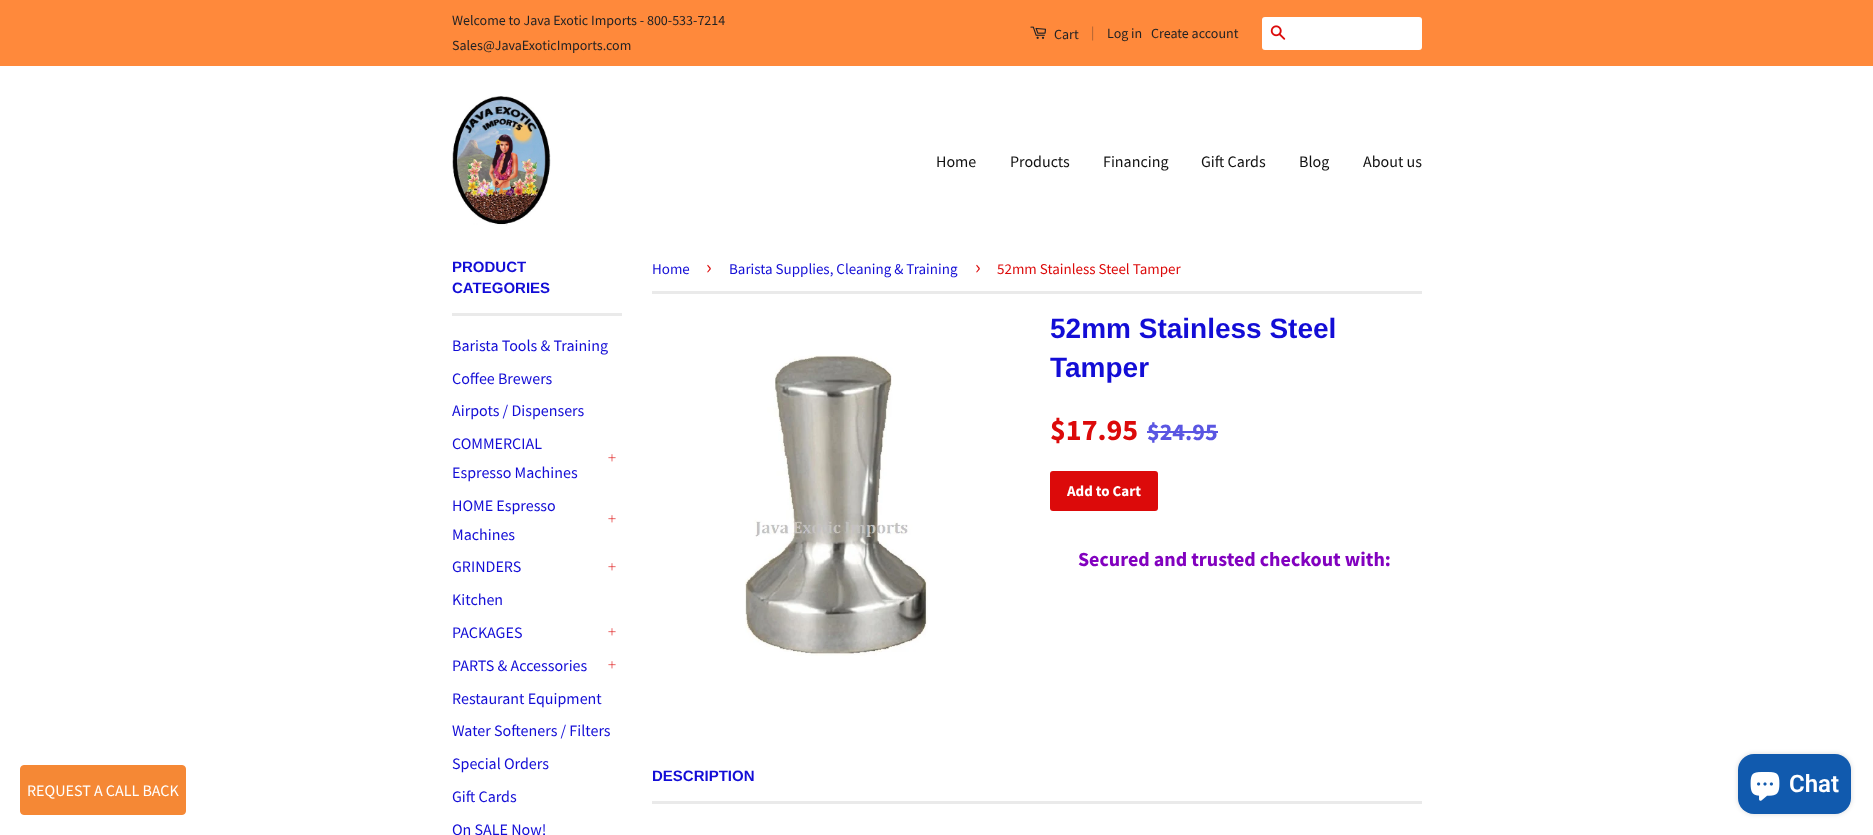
(async () => {
  const canvas = document.querySelector("canvas");
  canvas.width = 1873;
  canvas.height = 835;
  const ctx = canvas.getContext("2d");
  ctx.miterLimit = 4;
  ctx.fontKerning = "normal";
  async function loadImage(src) {
    const img = new Image();
    img.src = src;
    await img.decode();
    return img;
  }

  ctx.fillStyle = "#ffffff";
  ctx.fillRect(0, 0, 1873, 835);
  ctx.fillStyle = "#ff893b";
  ctx.fillRect(0, 0, 1873, 66);
  ctx.drawImage(await loadImage("img/1.png"), 1030, 26, 16, 13);
  ctx.fillStyle = "#ffffff";
  ctx.beginPath();
  ctx.roundRect(1262, 17, 160, 33, 3);
  ctx.fill();
  ctx.drawImage(await loadImage("img/2.png"), 1270, 25, 16, 15);
  ctx.drawImage(await loadImage("img/3.png"), 452, 96, 99, 130);
  ctx.fillStyle = "#f58835";
  ctx.beginPath();
  ctx.roundRect(20.5, 765.5, 165, 49, 3.5);
  ctx.fill();
  ctx.strokeStyle = "#f58835";
  ctx.stroke();
  ctx.fillStyle = "#eaeaea";
  ctx.fillRect(452, 313, 170, 3);
  ctx.drawImage(await loadImage("img/4.png"), 608, 454, 8, 8);
  ctx.drawImage(await loadImage("img/4.png"), 608, 515, 8, 8);
  ctx.drawImage(await loadImage("img/4.png"), 608, 563, 8, 8);
  ctx.drawImage(await loadImage("img/4.png"), 608, 628, 8, 8);
  ctx.drawImage(await loadImage("img/4.png"), 608, 661, 8, 8);
  ctx.fillRect(652, 291, 770, 3);
  ctx.drawImage(await loadImage("img/5.png"), 745, 355, 183, 301);
  ctx.fillStyle = "#5a56e2";
  ctx.fillRect(1147, 431, 71, 2);
  ctx.fillStyle = "#dc0a0a";
  ctx.beginPath();
  ctx.roundRect(1050, 471, 108, 40, 3);
  ctx.fill();
  ctx.fillStyle = "#eaeaea";
  ctx.fillRect(652, 801, 770, 3);
  ctx.fillStyle = "rgba(0, 0, 0, 0.15)";
  ctx.filter = "blur(2.5px)";
  ctx.beginPath();
  ctx.roundRect(1738, 754, 113, 60, 16);
  ctx.fill();
  ctx.filter = "none";
  ctx.fillStyle = "#115aae";
  ctx.beginPath();
  ctx.roundRect(1738, 754, 113, 60, 16);
  ctx.fill();
  ctx.drawImage(await loadImage("img/6.png"), 1750, 772, 30, 29);
  ctx.font = "14px Source Sans Pro";
  ctx.fillStyle = "#1f2124";
  for (const [text, x, y] of [
    ["Welcome to Java Exotic Imports - 800-533-7214", 452, 25],
    ["Sales@JavaExoticImports.com", 452, 50],
    ["Cart", 1054, 39],
  ]) {
    ctx.fillText(text, x, y);
  }
  ctx.fillStyle = "#a55f32";
  ctx.fillText("|", 1091, 37);
  ctx.fillStyle = "#1f2124";
  ctx.fillText("Log in", 1107, 38);
  ctx.fillText("Create account", 1151, 38);
  ctx.font = "16px Source Sans Pro";
  ctx.fillStyle = "#111111";
  for (const [text, x, y] of [
    ["Home", 936, 167],
    ["Products", 1010, 167],
    ["Financing", 1103, 167],
    ["Gift Cards", 1201, 167],
    ["Blog", 1299, 167],
    ["About us", 1363, 167],
  ]) {
    ctx.fillText(text, x, y);
  }
  ctx.fillStyle = "#ffffff";
  ctx.fillText("REQUEST A CALL BACK", 27, 796);
  ctx.font = "bold 15px Liberation Sans";
  ctx.fillStyle = "#130dd6";
  ctx.fillText("PRODUCT", 452, 272);
  ctx.fillText("CATEGORIES", 452, 293);
  ctx.font = "16px Source Sans Pro";
  for (const [text, x, y] of [
    ["Barista Tools & Training", 452, 351],
    ["Coffee Brewers", 452, 384],
    ["Airpots / Dispensers", 452, 416],
    ["COMMERCIAL", 452, 449],
    ["Espresso Machines", 452, 478],
    ["HOME Espresso", 452, 511],
    ["Machines", 452, 540],
    ["GRINDERS", 452, 572],
    ["Kitchen", 452, 605],
    ["PACKAGES", 452, 638],
    ["PARTS & Accessories", 452, 671],
    ["Restaurant Equipment", 452, 704],
    ["Water Softeners / Filters", 452, 736],
    ["Special Orders", 452, 769],
    ["Gift Cards", 452, 802],
    ["On SALE Now!", 452, 835],
  ]) {
    ctx.fillText(text, x, y);
  }
  ctx.font = "15px Source Sans Pro";
  ctx.fillText("Home", 652, 274);
  ctx.font = "21px Source Sans Pro";
  ctx.fillStyle = "#dc0a0a";
  ctx.fillText("›", 706, 274);
  ctx.font = "15px Source Sans Pro";
  ctx.fillStyle = "#130dd6";
  ctx.fillText("Barista Supplies, Cleaning & Training", 729, 274);
  ctx.font = "21px Source Sans Pro";
  ctx.fillStyle = "#dc0a0a";
  ctx.fillText("›", 975, 274);
  ctx.font = "15px Source Sans Pro";
  ctx.fillText("52mm Stainless Steel Tamper", 997, 274);
  ctx.font = "bold 28px Liberation Sans";
  ctx.fillStyle = "#130dd6";
  ctx.fillText("52mm Stainless Steel", 1050, 338);
  ctx.fillText("Tamper", 1050, 377);
  ctx.font = "bold 30px Source Sans Pro";
  ctx.fillStyle = "#dc0a0a";
  ctx.fillText("$17.95", 1050, 440);
  ctx.font = "bold 24px Source Sans Pro";
  ctx.fillStyle = "#5a56e2";
  ctx.fillText("$24.95", 1147, 440);
  ctx.font = "bold 15px Source Sans Pro";
  ctx.fillStyle = "#ffffff";
  ctx.fillText("Add to Cart", 1067, 496);
  ctx.font = "bold 20px Source Sans Pro";
  ctx.fillStyle = "#8201bf";
  ctx.fillText("Secured and trusted checkout with:", 1078, 566);
  ctx.font = "bold 15px Liberation Sans";
  ctx.fillStyle = "#130dd6";
  ctx.fillText("DESCRIPTION", 652, 781);
  ctx.font = "600 24px Roboto";
  ctx.fillStyle = "#ffffff";
  ctx.fillText("Chat", 1789, 792);
})();
